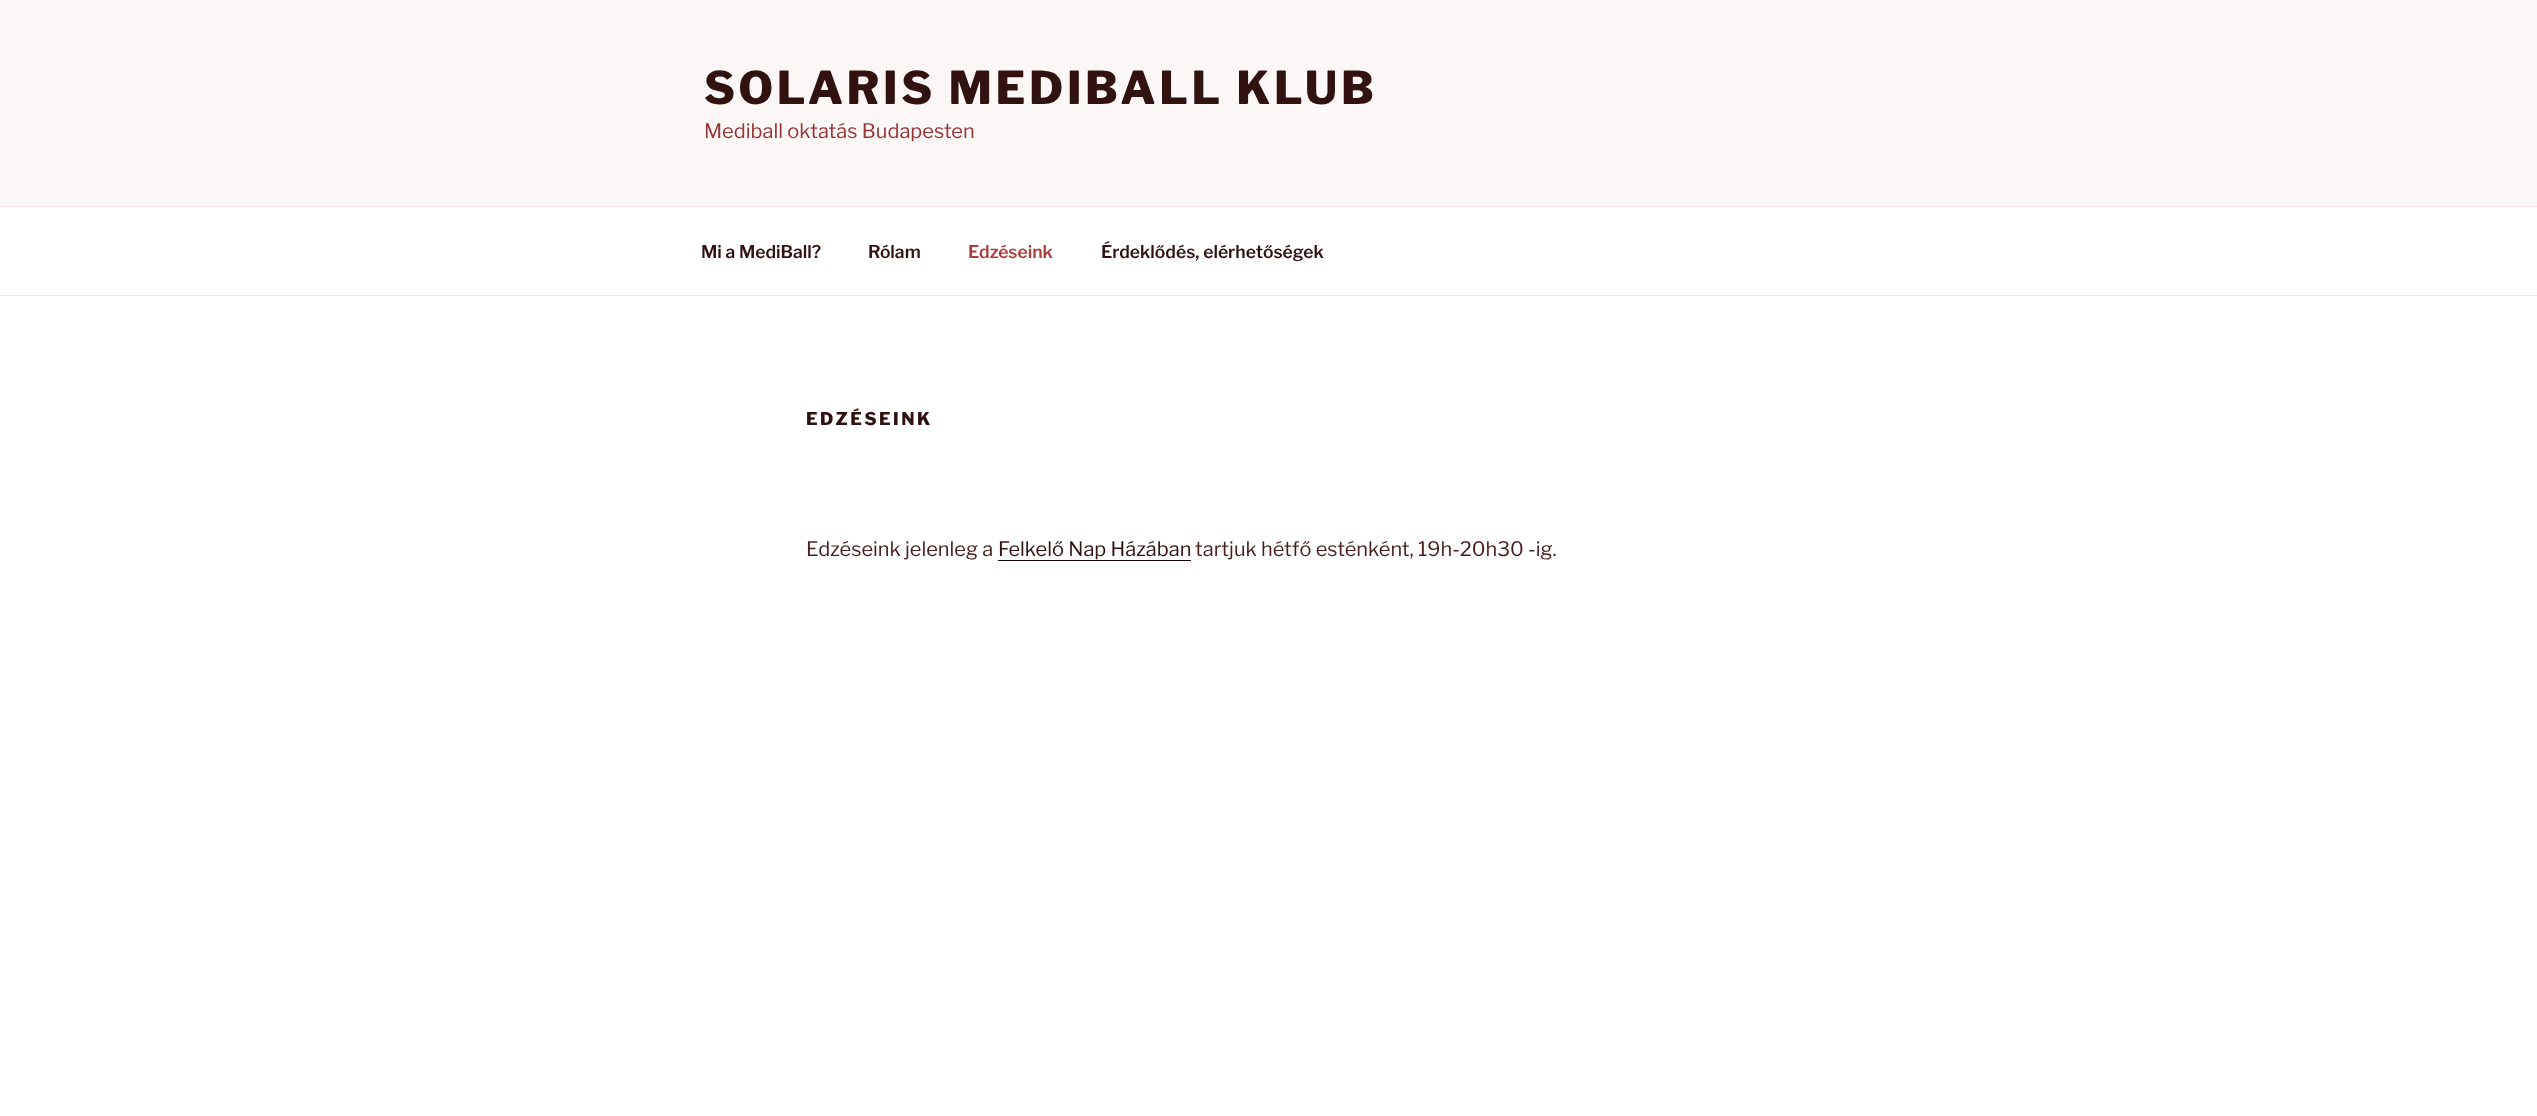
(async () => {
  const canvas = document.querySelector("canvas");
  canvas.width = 2537;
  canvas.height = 1116;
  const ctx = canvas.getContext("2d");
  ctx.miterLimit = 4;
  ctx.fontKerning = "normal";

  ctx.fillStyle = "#ffffff";
  ctx.fillRect(0, 0, 2537, 1116);
  for (const [x, y, w, h, color] of [
    [0, 0, 2537, 206, "#fcf7f7"],
    [0, 206, 2537, 1, "#f6e4e4"],
    [0, 295, 2537, 1, "#f6e4e4"],
    [998, 560, 193, 1, "#170808"],
  ]) {
    ctx.fillStyle = color;
    ctx.fillRect(x, y, w, h);
  }
  ctx.letterSpacing = "3.6px";
  ctx.font = "100 45px Libre Franklin";
  ctx.fillStyle = "#321111";
  ctx.fillText("SOLARIS MEDIBALL KLUB", 704, 104);
  ctx.letterSpacing = "0px";
  ctx.font = "100 20px 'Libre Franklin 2'";
  ctx.fillStyle = "#993333";
  ctx.fillText("Mediball oktatás Budapesten", 704, 138);
  ctx.font = "100 17.5px 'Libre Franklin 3'";
  ctx.fillStyle = "#321111";
  ctx.fillText("Mi a MediBall?", 701, 258);
  ctx.fillText("Rólam", 868, 258);
  ctx.fillStyle = "#b03b3b";
  ctx.fillText("Edzéseink", 968, 258);
  ctx.fillStyle = "#321111";
  ctx.fillText("Érdeklődés, elérhetőségek", 1101, 258);
  ctx.letterSpacing = "2.5px";
  ctx.font = "100 17.5px Libre Franklin";
  ctx.fillText("EDZÉSEINK", 806, 425);
  ctx.letterSpacing = "0px";
  ctx.font = "100 20px 'Libre Franklin 2'";
  ctx.fillStyle = "#471f1f";
  ctx.fillText("Edzéseink jelenleg a", 806, 556);
  ctx.fillStyle = "#321111";
  ctx.fillText("Felkelő Nap Házában", 998, 556);
  ctx.fillStyle = "#471f1f";
  ctx.fillText("tartjuk hétfő esténként, 19h-20h30 -ig.", 1195, 556);
})();
